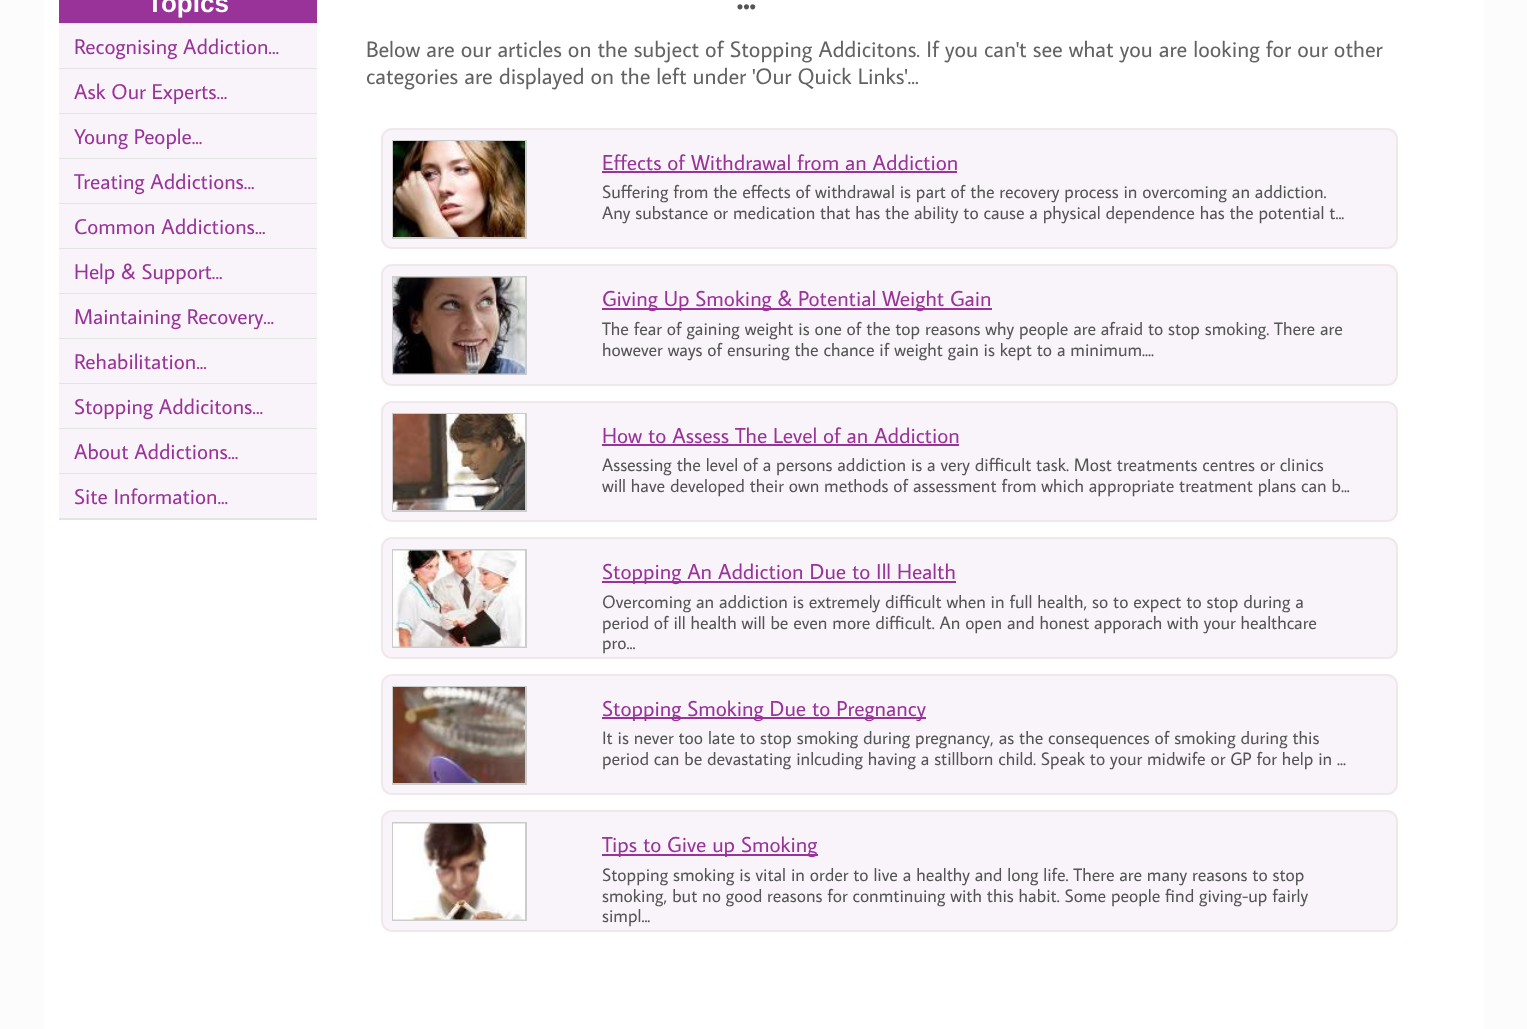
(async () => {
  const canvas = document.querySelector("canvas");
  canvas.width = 1527;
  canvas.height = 1029;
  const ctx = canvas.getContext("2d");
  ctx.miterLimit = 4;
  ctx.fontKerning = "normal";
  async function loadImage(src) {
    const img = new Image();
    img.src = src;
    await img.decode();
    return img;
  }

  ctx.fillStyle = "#fcfcfc";
  ctx.fillRect(0, 0, 1527, 1029);
  for (const [x, y, w, h, color] of [
    [44, 0, 1440, 1029, "#ffffff"],
    [59, 0, 258, 23, "#993399"],
    [59, 23, 258, 1, "#e3e3e3"],
    [59, 24, 258, 44, "#f9f3fa"],
    [59, 68, 258, 1, "#e3e3e3"],
    [59, 69, 258, 44, "#f9f3fa"],
    [59, 113, 258, 1, "#e3e3e3"],
    [59, 114, 258, 44, "#f9f3fa"],
    [59, 158, 258, 1, "#e3e3e3"],
    [59, 159, 258, 44, "#f9f3fa"],
    [59, 203, 258, 1, "#e3e3e3"],
    [59, 204, 258, 44, "#f9f3fa"],
    [59, 248, 258, 1, "#e3e3e3"],
    [59, 249, 258, 44, "#f9f3fa"],
    [59, 293, 258, 1, "#e3e3e3"],
    [59, 294, 258, 44, "#f9f3fa"],
    [59, 338, 258, 1, "#e3e3e3"],
    [59, 339, 258, 44, "#f9f3fa"],
    [59, 383, 258, 1, "#e3e3e3"],
    [59, 384, 258, 44, "#f9f3fa"],
    [59, 428, 258, 1, "#e3e3e3"],
    [59, 429, 258, 44, "#f9f3fa"],
    [59, 473, 258, 1, "#e3e3e3"],
    [59, 474, 258, 44, "#f9f3fa"],
    [59, 518, 258, 2, "#e3e3e3"],
  ]) {
    ctx.fillStyle = color;
    ctx.fillRect(x, y, w, h);
  }
  ctx.fillStyle = "#f9f3fa";
  ctx.beginPath();
  ctx.roundRect(382, 129, 1015, 119, 10);
  ctx.fill();
  ctx.strokeStyle = "#f1e8eb";
  ctx.lineWidth = 2;
  ctx.stroke();
  ctx.strokeStyle = "#cccccc";
  ctx.strokeRect(393, 141, 133, 97);
  ctx.drawImage(await loadImage("img/1.png"), 393, 141, 132, 96);
  ctx.fillStyle = "#993399";
  ctx.fillRect(602, 171, 355, 2);
  ctx.fillStyle = "#f9f3fa";
  ctx.beginPath();
  ctx.roundRect(382, 265, 1015, 120, 10);
  ctx.fill();
  ctx.strokeStyle = "#f1e8eb";
  ctx.stroke();
  ctx.strokeStyle = "#cccccc";
  ctx.strokeRect(393, 277, 133, 97);
  ctx.drawImage(await loadImage("img/2.png"), 393, 277, 132, 97);
  ctx.fillStyle = "#993399";
  ctx.fillRect(602, 308, 390, 2);
  ctx.fillStyle = "#f9f3fa";
  ctx.beginPath();
  ctx.roundRect(382, 402, 1015, 119, 10);
  ctx.fill();
  ctx.strokeStyle = "#f1e8eb";
  ctx.stroke();
  ctx.strokeStyle = "#cccccc";
  ctx.strokeRect(393, 414, 133, 97);
  ctx.drawImage(await loadImage("img/3.png"), 393, 414, 132, 96);
  ctx.fillStyle = "#993399";
  ctx.fillRect(602, 444, 357, 2);
  ctx.fillStyle = "#f9f3fa";
  ctx.beginPath();
  ctx.roundRect(382, 538, 1015, 120, 10);
  ctx.fill();
  ctx.strokeStyle = "#f1e8eb";
  ctx.stroke();
  ctx.strokeStyle = "#cccccc";
  ctx.strokeRect(393, 550, 133, 97);
  ctx.drawImage(await loadImage("img/4.png"), 393, 550, 132, 97);
  ctx.fillStyle = "#993399";
  ctx.fillRect(602, 581, 354, 2);
  ctx.fillStyle = "#f9f3fa";
  ctx.beginPath();
  ctx.roundRect(382, 675, 1015, 119, 10);
  ctx.fill();
  ctx.strokeStyle = "#f1e8eb";
  ctx.stroke();
  ctx.strokeStyle = "#cccccc";
  ctx.strokeRect(393, 687, 133, 97);
  ctx.drawImage(await loadImage("img/5.png"), 393, 687, 132, 96);
  ctx.fillStyle = "#993399";
  ctx.fillRect(602, 717, 324, 2);
  ctx.fillStyle = "#f9f3fa";
  ctx.beginPath();
  ctx.roundRect(382, 811, 1015, 120, 10);
  ctx.fill();
  ctx.strokeStyle = "#f1e8eb";
  ctx.stroke();
  ctx.strokeStyle = "#cccccc";
  ctx.strokeRect(393, 823, 133, 97);
  ctx.drawImage(await loadImage("img/6.png"), 393, 823, 132, 97);
  ctx.fillStyle = "#993399";
  ctx.fillRect(602, 854, 216, 2);
  ctx.font = "bold 26px Liberation Sans";
  ctx.fillStyle = "#ffffff";
  ctx.fillText("Topics", 147, 12);
  ctx.font = "21.5px Average Sans";
  ctx.fillStyle = "#993399";
  for (const [text, x, y] of [
    ["Recognising Addiction...", 74, 54],
    ["Ask Our Experts...", 74, 99],
    ["Young People...", 74, 144],
    ["Treating Addictions...", 74, 189],
    ["Common Addictions...", 74, 234],
    ["Help & Support...", 74, 279],
    ["Maintaining Recovery...", 74, 324],
    ["Rehabilitation...", 74, 369],
    ["Stopping Addicitons...", 74, 414],
    ["About Addictions...", 74, 459],
    ["Site Information...", 74, 504],
  ]) {
    ctx.fillText(text, x, y);
  }
  ctx.letterSpacing = "-1.5px";
  ctx.font = "48px Average Sans";
  ctx.fillStyle = "#555555";
  ctx.fillText("...", 736, 9);
  ctx.letterSpacing = "0px";
  ctx.font = "22.5px Average Sans";
  ctx.fillStyle = "#636363";
  ctx.fillText("Below are our articles on the subject of Stopping Addicitons. If you can't see what you are looking for our other", 366, 57);
  ctx.fillText("categories are displayed on the left under 'Our Quick Links'...", 366, 84);
  ctx.font = "21.6px Average Sans";
  ctx.fillStyle = "#993399";
  ctx.fillText("Effects of Withdrawal from an Addiction", 602, 170);
  ctx.font = "18px Average Sans";
  ctx.fillStyle = "#555555";
  ctx.fillText("Suffering from the effects of withdrawal is part of the recovery process in overcoming an addiction.", 602, 198);
  ctx.fillText("Any substance or medication that has the ability to cause a physical dependence has the potential t...", 602, 219);
  ctx.font = "21.6px Average Sans";
  ctx.fillStyle = "#993399";
  ctx.fillText("Giving Up Smoking & Potential Weight Gain", 602, 306);
  ctx.font = "18px Average Sans";
  ctx.fillStyle = "#555555";
  ctx.fillText("The fear of gaining weight is one of the top reasons why people are afraid to stop smoking. There are", 602, 335);
  ctx.fillText("however ways of ensuring the chance if weight gain is kept to a minimum....", 602, 356);
  ctx.font = "21.6px Average Sans";
  ctx.fillStyle = "#993399";
  ctx.fillText("How to Assess The Level of an Addiction", 602, 443);
  ctx.font = "18px Average Sans";
  ctx.fillStyle = "#555555";
  ctx.fillText("Assessing the level of a persons addiction is a very difficult task. Most treatments centres or clinics", 602, 471);
  ctx.fillText("will have developed their own methods of assessment from which appropriate treatment plans can b...", 602, 492);
  ctx.font = "21.6px Average Sans";
  ctx.fillStyle = "#993399";
  ctx.fillText("Stopping An Addiction Due to Ill Health", 602, 579);
  ctx.font = "18px Average Sans";
  ctx.fillStyle = "#555555";
  for (const [text, x, y] of [
    ["Overcoming an addiction is extremely difficult when in full health, so to expect to stop during a", 602, 608],
    ["period of ill health will be even more difficult. An open and honest apporach with your healthcare", 602, 629],
    ["pro...", 602, 649],
  ]) {
    ctx.fillText(text, x, y);
  }
  ctx.font = "21.6px Average Sans";
  ctx.fillStyle = "#993399";
  ctx.fillText("Stopping Smoking Due to Pregnancy", 602, 716);
  ctx.font = "18px Average Sans";
  ctx.fillStyle = "#555555";
  ctx.fillText("It is never too late to stop smoking during pregnancy, as the consequences of smoking during this", 602, 744);
  ctx.fillText("period can be devastating inlcuding having a stillborn child. Speak to your midwife or GP for help in ...", 602, 765);
  ctx.font = "21.6px Average Sans";
  ctx.fillStyle = "#993399";
  ctx.fillText("Tips to Give up Smoking", 602, 852);
  ctx.font = "18px Average Sans";
  ctx.fillStyle = "#555555";
  for (const [text, x, y] of [
    ["Stopping smoking is vital in order to live a healthy and long life. There are many reasons to stop", 602, 881],
    ["smoking, but no good reasons for conmtinuing with this habit. Some people find giving-up fairly", 602, 902],
    ["simpl...", 602, 922],
  ]) {
    ctx.fillText(text, x, y);
  }
})();
